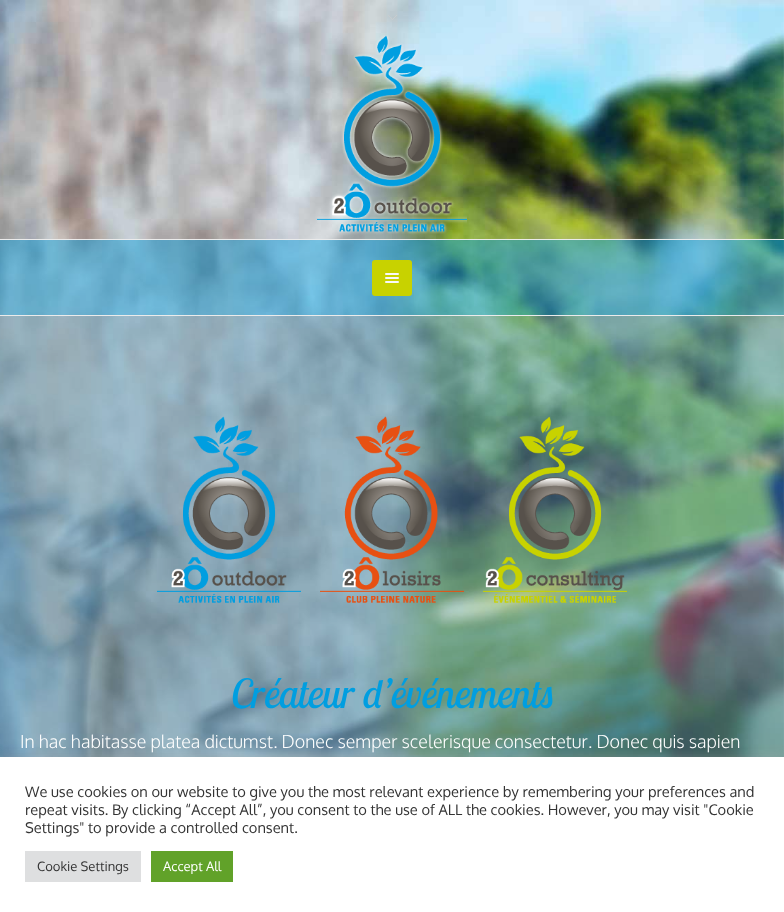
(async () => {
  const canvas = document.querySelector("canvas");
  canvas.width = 784;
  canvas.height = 912;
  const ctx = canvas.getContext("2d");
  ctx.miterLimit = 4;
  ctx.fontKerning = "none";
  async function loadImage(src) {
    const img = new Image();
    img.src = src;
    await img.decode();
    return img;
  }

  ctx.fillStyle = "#ffffff";
  ctx.fillRect(0, 0, 784, 912);
  ctx.drawImage(await loadImage("img/1.png"), 0, 0, 784, 757);
  for (const [x, y, w, h, color] of [
    [392, 19, 1, 1, "#c8ccce"],
    [396, 15, 1, 1, "#c8ccce"],
    [388, 15, 1, 1, "#c8ccce"],
    [395, 16, 1, 1, "#c8ccce"],
    [389, 16, 1, 1, "#c8ccce"],
    [394, 17, 1, 1, "#c8ccce"],
    [390, 17, 1, 1, "#c8ccce"],
    [393, 18, 1, 1, "#c8ccce"],
    [391, 18, 1, 1, "#c8ccce"],
    [0, 239, 784, 1, "#ebebeb"],
  ]) {
    ctx.fillStyle = color;
    ctx.fillRect(x, y, w, h);
  }
  ctx.drawImage(await loadImage("img/2.png"), 317, 35, 150, 200);
  ctx.fillStyle = "rgba(0, 158, 224, 0.46)";
  ctx.fillRect(0, 240, 784, 75);
  ctx.fillStyle = "#ebebeb";
  ctx.fillRect(0, 315, 784, 1);
  ctx.fillStyle = "#c8d200";
  ctx.beginPath();
  ctx.roundRect(372, 260, 40, 36, 3);
  ctx.fill();
  ctx.drawImage(await loadImage("img/3.png"), 385, 273, 14, 10);
  ctx.fillStyle = "rgba(79, 152, 187, 0.41)";
  ctx.fillRect(0, 316, 784, 441);
  ctx.drawImage(await loadImage("img/4.png"), 157, 416, 144, 187);
  ctx.drawImage(await loadImage("img/5.png"), 320, 416, 144, 187);
  ctx.drawImage(await loadImage("img/6.png"), 483, 416, 144, 187);
  ctx.fillStyle = "rgba(172, 171, 171, 0.3)";
  ctx.filter = "blur(5px)";
  ctx.beginPath();
  ctx.rect(0, 756, 784, 155);
  ctx.fill();
  ctx.filter = "none";
  for (const [x, y, w, h, color] of [
    [0, 757, 784, 155, "#ffffff"],
    [25, 851, 116, 31, "#dedfe0"],
    [151, 851, 82, 31, "#61a229"],
  ]) {
    ctx.fillStyle = color;
    ctx.fillRect(x, y, w, h);
  }
  ctx.font = "italic 40px Lobster Two";
  ctx.fillStyle = "#009ee0";
  ctx.fillText("Créateur d’événements", 231, 708);
  ctx.font = "300 18px Oxygen";
  ctx.fillStyle = "#ffffff";
  ctx.fillText("In hac habitasse platea dictumst. Donec semper scelerisque consectetur. Donec quis sapien", 20, 748);
  ctx.font = "14.65px Oxygen";
  ctx.fillStyle = "#333333";
  for (const [text, x, y] of [
    ["We use cookies on our website to give you the most relevant experience by remembering your preferences and", 25, 797],
    ["repeat visits. By clicking “Accept All”, you consent to the use of ALL the cookies. However, you may visit \"Cookie", 25, 815],
    ["Settings\" to provide a controlled consent.", 25, 833],
  ]) {
    ctx.fillText(text, x, y);
  }
  ctx.font = "13px Oxygen";
  ctx.fillText("Cookie Settings", 37, 871);
  ctx.fillStyle = "#ffffff";
  ctx.fillText("Accept All", 163, 871);
})();
